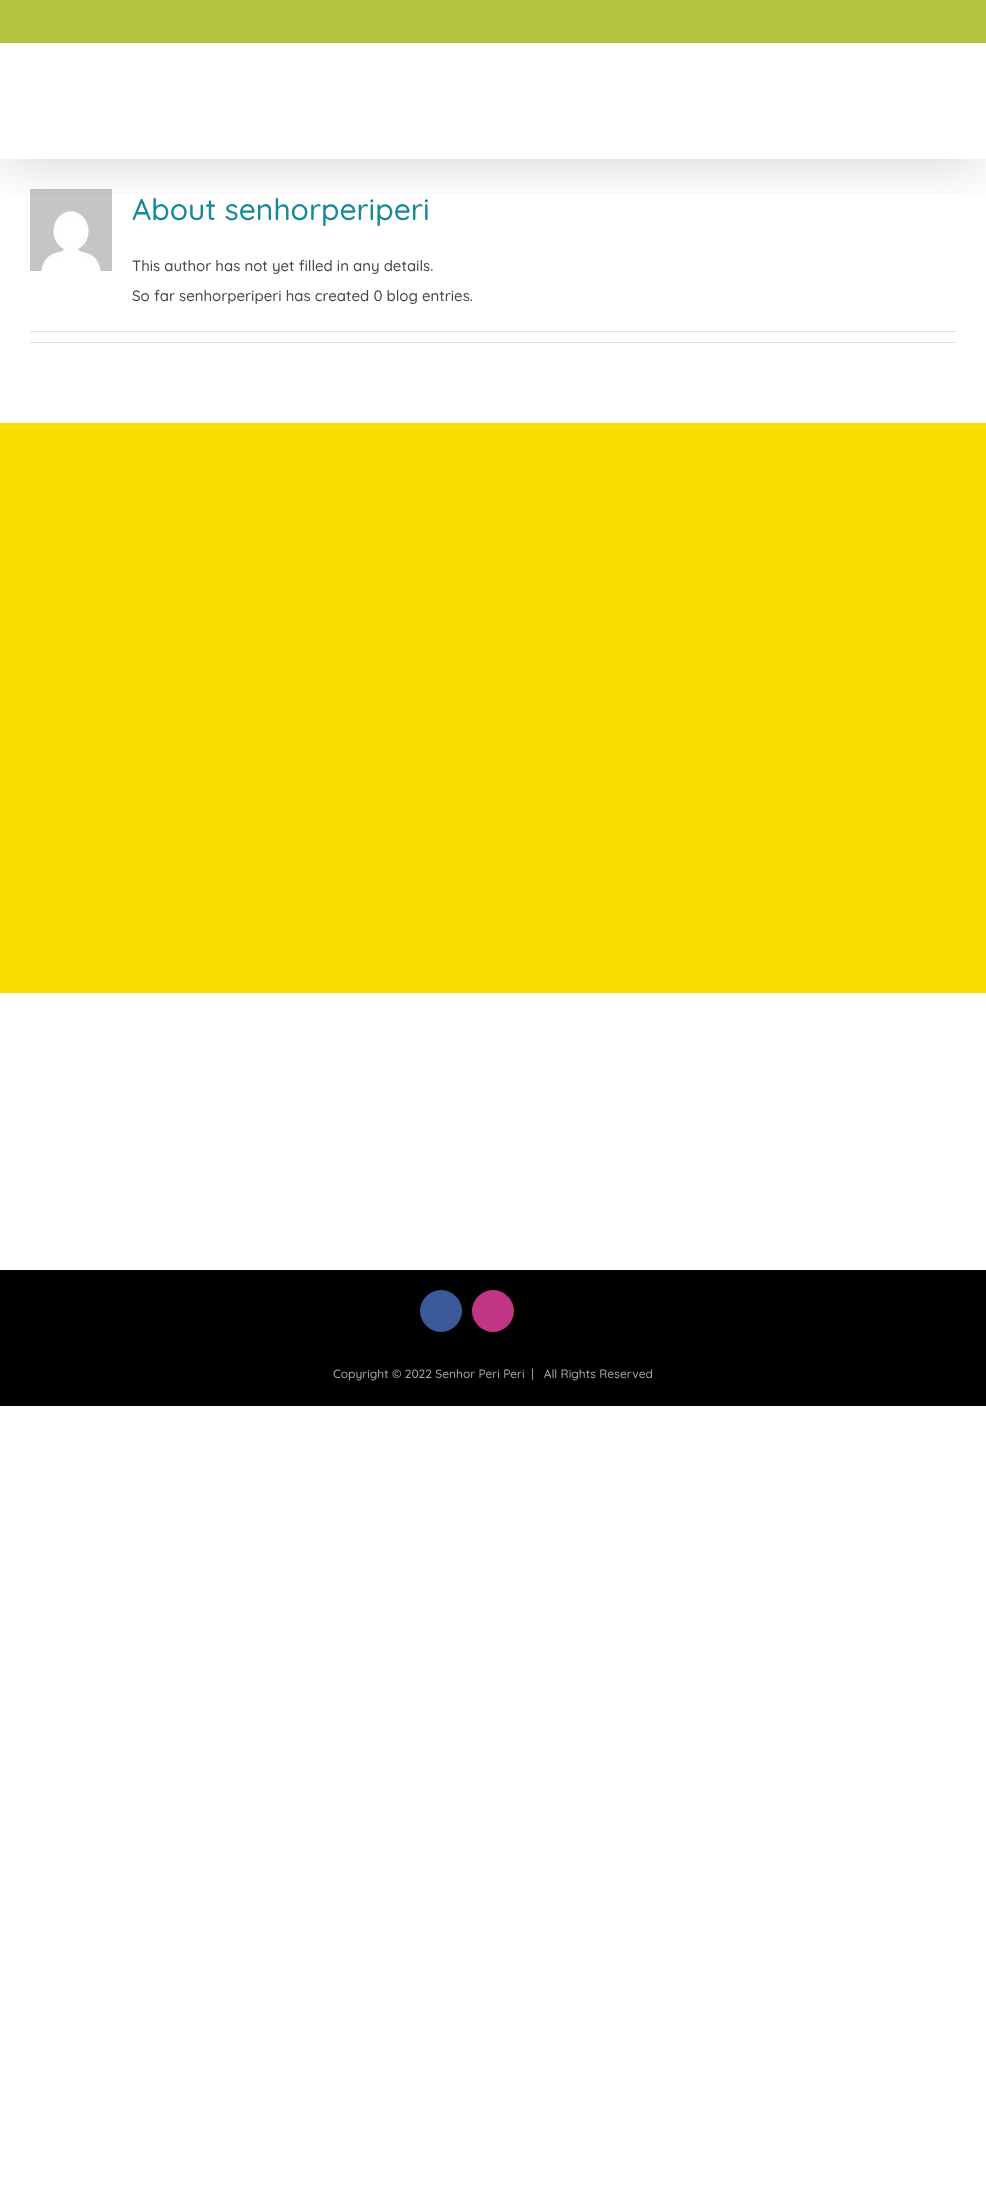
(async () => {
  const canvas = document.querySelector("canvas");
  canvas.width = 986;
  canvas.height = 2187;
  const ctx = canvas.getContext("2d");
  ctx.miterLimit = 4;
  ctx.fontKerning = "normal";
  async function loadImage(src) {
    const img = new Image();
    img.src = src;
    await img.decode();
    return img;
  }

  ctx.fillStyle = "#ffffff";
  ctx.fillRect(0, 0, 986, 2187);
  ctx.drawImage(await loadImage("img/1.png"), 30, 189, 82, 82);
  ctx.save();
  ctx.beginPath();
  ctx.rect(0, 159, 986, 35);
  ctx.clip();
  ctx.fillStyle = "rgba(0, 0, 0, 0.14)";
  ctx.filter = "blur(25px)";
  ctx.beginPath();
  ctx.rect(2, 12, 982, 155);
  ctx.fill();
  ctx.filter = "none";
  ctx.restore();
  for (const [x, y, w, h, color] of [
    [0, 0, 986, 43, "#b1c33f"],
    [30, 331, 926, 1, "#e0dede"],
    [30, 342, 926, 1, "#e0dede"],
    [0, 423, 986, 570, "#f8dc00"],
    [0, 1270, 986, 136, "#000000"],
  ]) {
    ctx.fillStyle = color;
    ctx.fillRect(x, y, w, h);
  }
  ctx.fillStyle = "#3b5998";
  ctx.beginPath();
  ctx.arc(441, 1311, 20.5, 0, Math.PI * 2);
  ctx.fill();
  ctx.strokeStyle = "#3b5998";
  ctx.stroke();
  ctx.fillStyle = "#c13584";
  ctx.beginPath();
  ctx.arc(493, 1311, 20.5, 0, Math.PI * 2);
  ctx.fill();
  ctx.strokeStyle = "#c13584";
  ctx.stroke();
  ctx.font = "500 30px Quicksand";
  ctx.fillStyle = "#15889a";
  ctx.fillText("About senhorperiperi", 132, 220);
  ctx.font = "500 15px Quicksand";
  ctx.fillStyle = "#474747";
  ctx.fillText("This author has not yet filled in any details.", 132, 271);
  ctx.fillText("So far senhorperiperi has created 0 blog entries.", 132, 301);
  ctx.font = "500 12px Quicksand";
  ctx.fillStyle = "#a8a8a8";
  ctx.fillText("Copyright © 2022 Senhor Peri Peri  |   All Rights Reserved", 333, 1378);
})();
